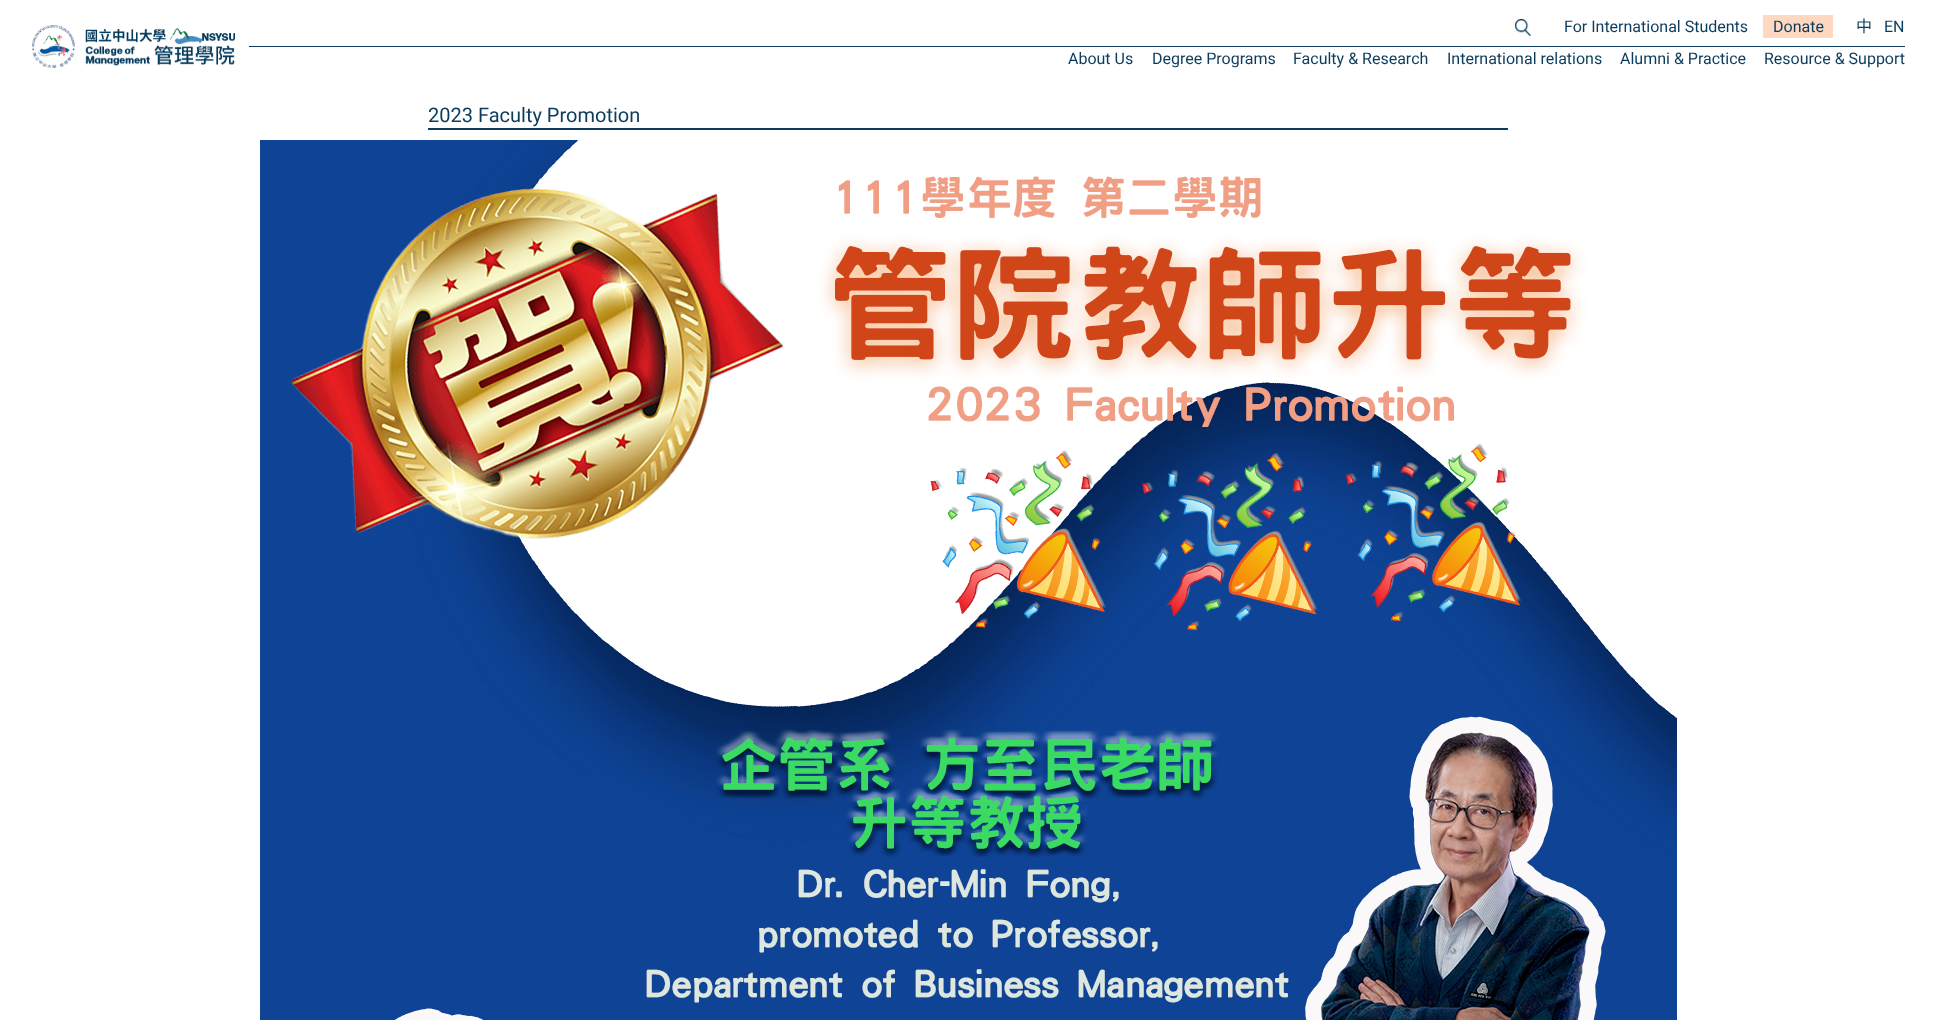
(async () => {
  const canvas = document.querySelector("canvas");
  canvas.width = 1937;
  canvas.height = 1020;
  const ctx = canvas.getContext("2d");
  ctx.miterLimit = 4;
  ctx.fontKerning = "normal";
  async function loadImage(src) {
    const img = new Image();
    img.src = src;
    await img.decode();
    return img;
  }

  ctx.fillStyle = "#ffffff";
  ctx.fillRect(0, 0, 1937, 1020);
  ctx.drawImage(await loadImage("img/1.png"), 32, 25, 203, 43);
  ctx.drawImage(await loadImage("img/2.png"), 1515, 19, 16, 18);
  for (const [x, y, w, h, color] of [
    [1763, 15, 70, 23, "#ffd8c1"],
    [249, 46, 1656, 1, "#0b3c5d"],
    [428, 128, 1080, 2, "#0b3c5d"],
  ]) {
    ctx.fillStyle = color;
    ctx.fillRect(x, y, w, h);
  }
  ctx.drawImage(await loadImage("img/3.png"), 260, 140, 1417, 880);
  ctx.font = "16px Roboto";
  ctx.fillText("For International Students", 1564, 32);
  ctx.fillText("Donate", 1773, 32);
  ctx.font = "100 16px Noto Sans TC";
  ctx.fillText("中", 1856, 32);
  ctx.font = "16px Roboto";
  for (const [text, x, y] of [
    ["EN", 1884, 32],
    ["About Us", 1068, 64],
    ["Degree Programs", 1152, 64],
    ["Faculty & Research", 1293, 64],
    ["International relations", 1447, 64],
    ["Alumni & Practice", 1620, 64],
    ["Resource & Support", 1764, 64],
  ]) {
    ctx.fillText(text, x, y);
  }
  ctx.font = "20px Roboto";
  ctx.fillText("2023 Faculty Promotion", 428, 122);
})();
